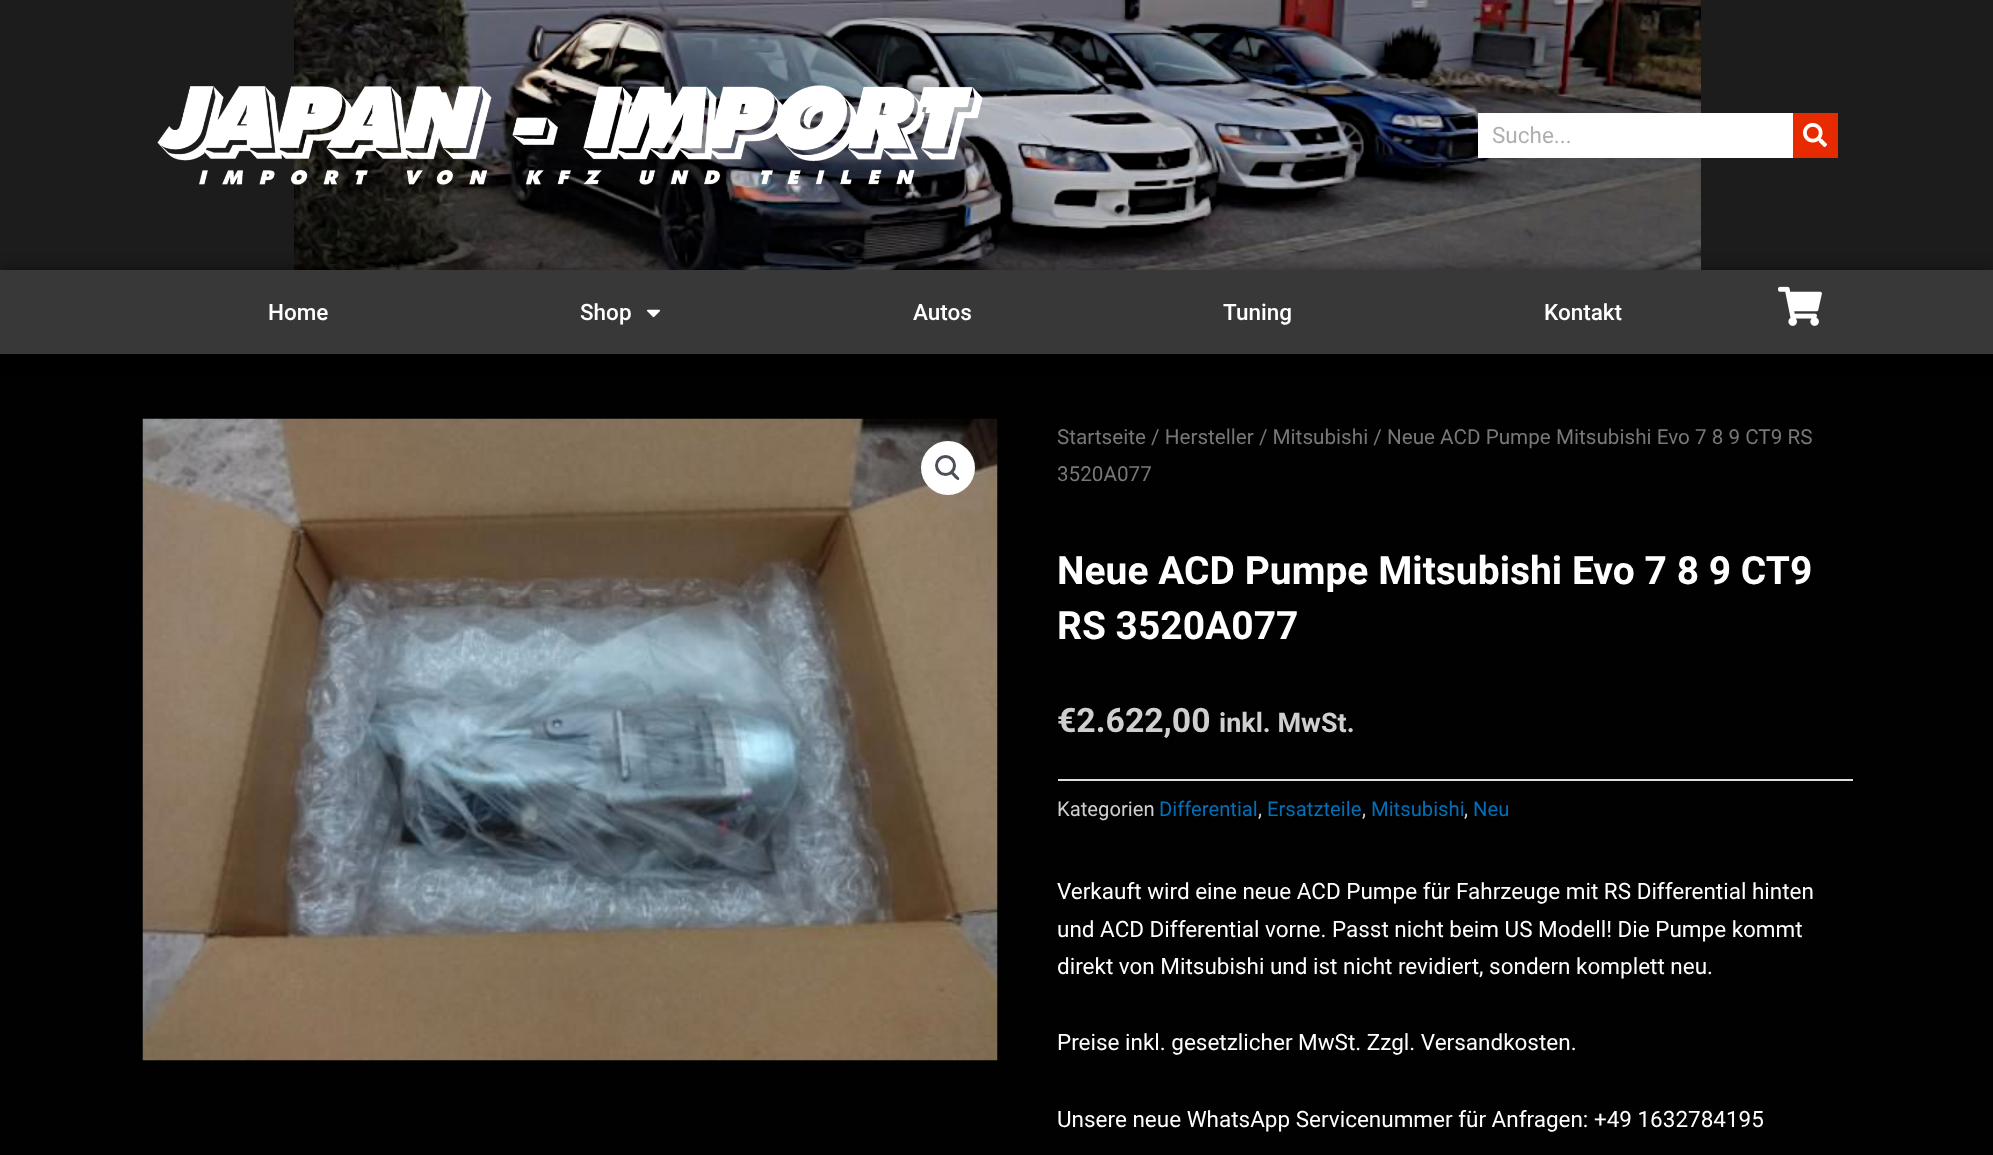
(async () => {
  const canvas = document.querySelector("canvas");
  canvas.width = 1993;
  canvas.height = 1155;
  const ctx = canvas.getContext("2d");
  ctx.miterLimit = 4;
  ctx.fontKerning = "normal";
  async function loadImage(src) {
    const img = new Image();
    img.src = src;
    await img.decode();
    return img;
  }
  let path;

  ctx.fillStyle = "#020101";
  ctx.fillRect(0, 0, 1993, 1155);
  ctx.fillStyle = "#1c1c1c";
  ctx.fillRect(0, 0, 1993, 270);
  ctx.drawImage(await loadImage("img/1.png"), 294, 0, 1407, 270);
  ctx.drawImage(await loadImage("img/2.png"), 157, 85, 826, 100);
  ctx.fillStyle = "#ffffff";
  ctx.fillRect(1478, 113, 315, 45);
  ctx.fillStyle = "#e82a00";
  ctx.fillRect(1793, 113, 45, 45);
  ctx.drawImage(await loadImage("img/3.png"), 1803, 123, 24, 24);
  ctx.fillStyle = "rgba(0, 0, 0, 0.5)";
  ctx.filter = "blur(7.5px)";
  ctx.beginPath();
  ctx.rect(0, 270, 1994, 89);
  ctx.fill();
  ctx.filter = "none";
  ctx.fillStyle = "#383838";
  ctx.fillRect(0, 270, 1993, 84);
  ctx.drawImage(await loadImage("img/4.png"), 647, 309, 13, 9);
  ctx.drawImage(await loadImage("img/5.png"), 1778, 286, 44, 40);
  ctx.drawImage(await loadImage("img/6.png"), 142, 418, 856, 643);
  ctx.fillStyle = "#ffffff";
  ctx.beginPath();
  ctx.arc(948, 468, 27, 0, Math.PI * 2);
  ctx.fill();
  ctx.beginPath();
  ctx.arc(945.5, 465.5, 9, 0, Math.PI * 2);
  ctx.strokeStyle = "#4b4f58";
  ctx.lineWidth = 3;
  ctx.stroke();
  ctx.fillStyle = "#4b4f58";
  path = new Path2D("M950.5 471.5C952 469.5 955 473.5 956 474.5C956.5 475.5 960.5 478 959 479.5C957.5 481.5 954.5 477.5 953.5 476.5C953 475.5 949 473 950.5 471.5Z");
  ctx.fill(path);
  ctx.fillStyle = "#dddddd";
  ctx.fillRect(1058, 779, 795, 2);
  ctx.font = "22.5px Roboto";
  ctx.fillStyle = "#afafaf";
  ctx.fillText("Suche...", 1492, 143);
  ctx.font = "500 22.5px Roboto";
  ctx.fillStyle = "#ffffff";
  for (const [text, x, y] of [
    ["Home", 268, 320],
    ["Shop", 580, 320],
    ["Autos", 913, 320],
    ["Tuning", 1223, 320],
    ["Kontakt", 1544, 320],
  ]) {
    ctx.fillText(text, x, y);
  }
  ctx.font = "20.7px Roboto";
  ctx.fillStyle = "#777777";
  ctx.fillText("Startseite / Hersteller / Mitsubishi / Neue ACD Pumpe Mitsubishi Evo 7 8 9 CT9 RS", 1057, 444);
  ctx.fillText("3520A077", 1057, 481);
  ctx.font = "bold 39px Roboto";
  ctx.fillStyle = "#ffffff";
  ctx.fillText("Neue ACD Pumpe Mitsubishi Evo 7 8 9 CT9", 1057, 584);
  ctx.fillText("RS 3520A077", 1057, 639);
  ctx.font = "bold 33.75px Roboto";
  ctx.fillStyle = "#cfcfcf";
  ctx.fillText("€2.622,00", 1057, 732);
  ctx.font = "bold 27px Roboto";
  ctx.fillText("inkl. MwSt.", 1219, 732);
  ctx.font = "20.25px Roboto";
  ctx.fillText("Kategorien", 1057, 816);
  ctx.fillStyle = "#0170b9";
  ctx.fillText("Differential", 1159, 816);
  ctx.fillStyle = "#cfcfcf";
  ctx.fillText(",", 1258, 816);
  ctx.fillStyle = "#0170b9";
  ctx.fillText("Ersatzteile", 1267, 816);
  ctx.fillStyle = "#cfcfcf";
  ctx.fillText(",", 1362, 816);
  ctx.fillStyle = "#0170b9";
  ctx.fillText("Mitsubishi", 1371, 816);
  ctx.fillStyle = "#cfcfcf";
  ctx.fillText(",", 1464, 816);
  ctx.fillStyle = "#0170b9";
  ctx.fillText("Neu", 1473, 816);
  ctx.font = "22.5px Roboto";
  ctx.fillStyle = "#ffffff";
  for (const [text, x, y] of [
    ["Verkauft wird eine neue ACD Pumpe für Fahrzeuge mit RS Differential hinten", 1057, 899],
    ["und ACD Differential vorne. Passt nicht beim US Modell! Die Pumpe kommt", 1057, 937],
    ["direkt von Mitsubishi und ist nicht revidiert, sondern komplett neu.", 1057, 974],
    ["Preise inkl. gesetzlicher MwSt. Zzgl. Versandkosten.", 1057, 1050],
    ["Unsere neue WhatsApp Servicenummer für Anfragen: +49 1632784195", 1057, 1127],
  ]) {
    ctx.fillText(text, x, y);
  }
})();
